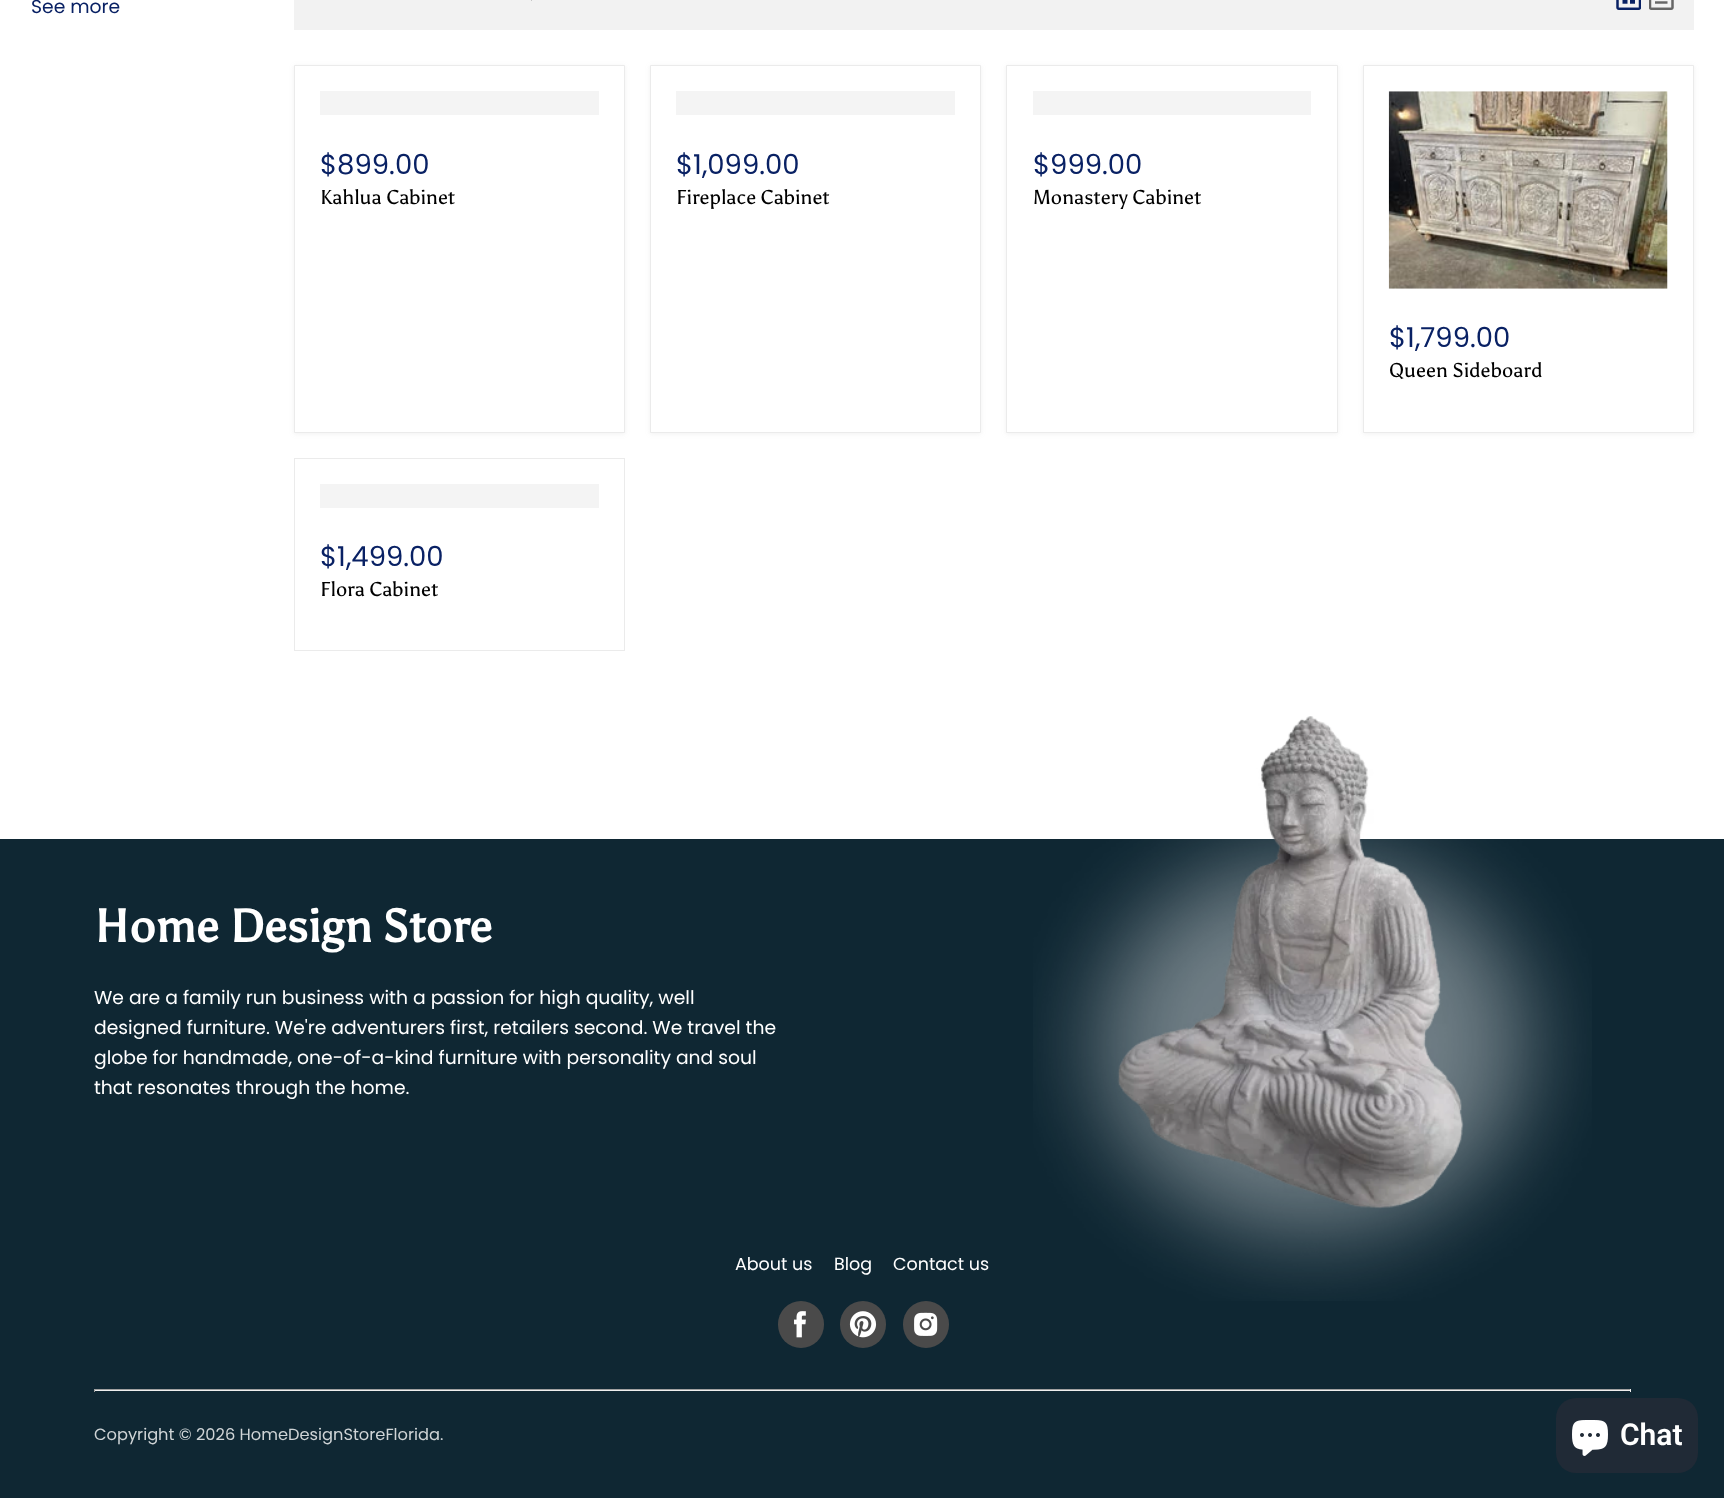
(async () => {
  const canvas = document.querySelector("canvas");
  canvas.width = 1724;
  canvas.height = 1498;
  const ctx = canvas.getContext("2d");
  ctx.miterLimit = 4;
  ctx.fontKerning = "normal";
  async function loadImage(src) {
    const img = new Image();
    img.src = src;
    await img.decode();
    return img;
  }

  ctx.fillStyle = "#ffffff";
  ctx.fillRect(0, 0, 1724, 1498);
  ctx.fillStyle = "#f2f2f2";
  ctx.fillRect(294, 0, 1400, 30);
  ctx.drawImage(await loadImage("img/1.png"), 531, 0, 1, 1);
  ctx.drawImage(await loadImage("img/2.png"), 1616, 0, 25, 10);
  ctx.drawImage(await loadImage("img/3.png"), 1649, 0, 25, 10);
  ctx.fillStyle = "rgba(127, 127, 127, 0.11)";
  ctx.filter = "blur(2.5px)";
  ctx.beginPath();
  ctx.rect(294, 66, 331, 368);
  ctx.fill();
  ctx.filter = "none";
  ctx.fillStyle = "#ffffff";
  ctx.beginPath();
  ctx.rect(294.5, 65.5, 330, 367);
  ctx.fill();
  ctx.strokeStyle = "#ebebeb";
  ctx.stroke();
  ctx.fillStyle = "#f4f4f4";
  ctx.fillRect(320, 91, 279, 24);
  ctx.fillStyle = "rgba(127, 127, 127, 0.11)";
  ctx.filter = "blur(2.5px)";
  ctx.beginPath();
  ctx.rect(650, 66, 331, 368);
  ctx.fill();
  ctx.filter = "none";
  ctx.fillStyle = "#ffffff";
  ctx.beginPath();
  ctx.rect(650.5, 65.5, 330, 367);
  ctx.fill();
  ctx.stroke();
  ctx.fillStyle = "#f4f4f4";
  ctx.fillRect(676, 91, 279, 24);
  ctx.fillStyle = "rgba(127, 127, 127, 0.11)";
  ctx.filter = "blur(2.5px)";
  ctx.beginPath();
  ctx.rect(1006, 66, 332, 368);
  ctx.fill();
  ctx.filter = "none";
  ctx.fillStyle = "#ffffff";
  ctx.beginPath();
  ctx.rect(1006.5, 65.5, 331, 367);
  ctx.fill();
  ctx.stroke();
  ctx.fillStyle = "#f4f4f4";
  ctx.fillRect(1033, 91, 278, 24);
  ctx.fillStyle = "rgba(127, 127, 127, 0.11)";
  ctx.filter = "blur(2.5px)";
  ctx.beginPath();
  ctx.rect(1363, 66, 331, 368);
  ctx.fill();
  ctx.filter = "none";
  ctx.fillStyle = "#ffffff";
  ctx.beginPath();
  ctx.rect(1363.5, 65.5, 330, 367);
  ctx.fill();
  ctx.stroke();
  ctx.drawImage(await loadImage("img/4.png"), 1388, 91, 280, 198);
  ctx.strokeRect(294.5, 458.5, 330, 192);
  ctx.fillStyle = "#f4f4f4";
  ctx.fillRect(320, 484, 279, 24);
  ctx.fillStyle = "#0f2733";
  ctx.fillRect(0, 839, 1724, 659);
  ctx.drawImage(await loadImage("img/5.png"), 1033, 716, 559, 585);
  ctx.fillStyle = "#4a4a4a";
  ctx.beginPath();
  ctx.roundRect(778, 1301, 46, 47, 23);
  ctx.fill();
  ctx.drawImage(await loadImage("img/6.png"), 794, 1311, 12, 27);
  ctx.beginPath();
  ctx.roundRect(840, 1301, 46, 47, 23);
  ctx.fill();
  ctx.drawImage(await loadImage("img/7.png"), 849, 1311, 28, 27);
  ctx.beginPath();
  ctx.roundRect(903, 1301, 46, 47, 23);
  ctx.fill();
  ctx.drawImage(await loadImage("img/8.png"), 914, 1312, 24, 24);
  for (const [x, y, w, h, color] of [
    [94, 1389, 1537, 1, "#9f9f9f"],
    [1630, 1389, 1, 3, "#eeeeee"],
    [94, 1390, 1537, 1, "#eeeeee"],
    [94, 1389, 1, 3, "#9f9f9f"],
  ]) {
    ctx.fillStyle = color;
    ctx.fillRect(x, y, w, h);
  }
  ctx.fillStyle = "#202a36";
  ctx.beginPath();
  ctx.roundRect(1556, 1398, 142, 75, 20);
  ctx.fill();
  ctx.drawImage(await loadImage("img/9.png"), 1572, 1420, 36, 36);
  ctx.font = "18.75px Poppins";
  ctx.fillStyle = "#092164";
  ctx.fillText("See more", 31, 13);
  ctx.font = "27.5px Poppins";
  ctx.fillText("$899.00", 320, 174);
  ctx.font = "20px Asul";
  ctx.fillStyle = "#000000";
  ctx.fillText("Kahlua Cabinet", 320, 204);
  ctx.font = "27.5px Poppins";
  ctx.fillStyle = "#092164";
  ctx.fillText("$1,099.00", 676, 174);
  ctx.font = "20px Asul";
  ctx.fillStyle = "#000000";
  ctx.fillText("Fireplace Cabinet", 676, 204);
  ctx.font = "27.5px Poppins";
  ctx.fillStyle = "#092164";
  ctx.fillText("$999.00", 1033, 174);
  ctx.font = "20px Asul";
  ctx.fillStyle = "#000000";
  ctx.fillText("Monastery Cabinet", 1033, 204);
  ctx.font = "27.5px Poppins";
  ctx.fillStyle = "#092164";
  ctx.fillText("$1,799.00", 1389, 347);
  ctx.font = "20px Asul";
  ctx.fillStyle = "#000000";
  ctx.fillText("Queen Sideboard", 1389, 377);
  ctx.font = "27.5px Poppins";
  ctx.fillStyle = "#092164";
  ctx.fillText("$1,499.00", 320, 566);
  ctx.font = "20px Asul";
  ctx.fillStyle = "#000000";
  ctx.fillText("Flora Cabinet", 320, 596);
  ctx.font = "bold 46.25px Asul";
  ctx.fillStyle = "#ffffff";
  ctx.fillText("Home Design Store", 94, 942);
  ctx.font = "18.75px Poppins";
  for (const [text, x, y] of [
    ["We are a family run business with a passion for high quality, well", 94, 1004],
    ["designed furniture. We're adventurers first, retailers second. We travel the", 94, 1034],
    ["globe for handmade, one-of-a-kind furniture with personality and soul", 94, 1064],
    ["that resonates through the home.", 94, 1094],
  ]) {
    ctx.fillText(text, x, y);
  }
  ctx.font = "17.5px Poppins";
  for (const [text, x, y] of [
    ["About us", 735, 1270],
    ["Blog", 834, 1270],
    ["Contact us", 893, 1270],
  ]) {
    ctx.fillText(text, x, y);
  }
  ctx.font = "16.25px Poppins";
  ctx.fillStyle = "#cfd4d6";
  ctx.fillText("Copyright © 2026 HomeDesignStoreFlorida.", 94, 1440);
  ctx.font = "600 30px Roboto";
  ctx.fillStyle = "#ffffff";
  ctx.fillText("Chat", 1620, 1445);
})();
